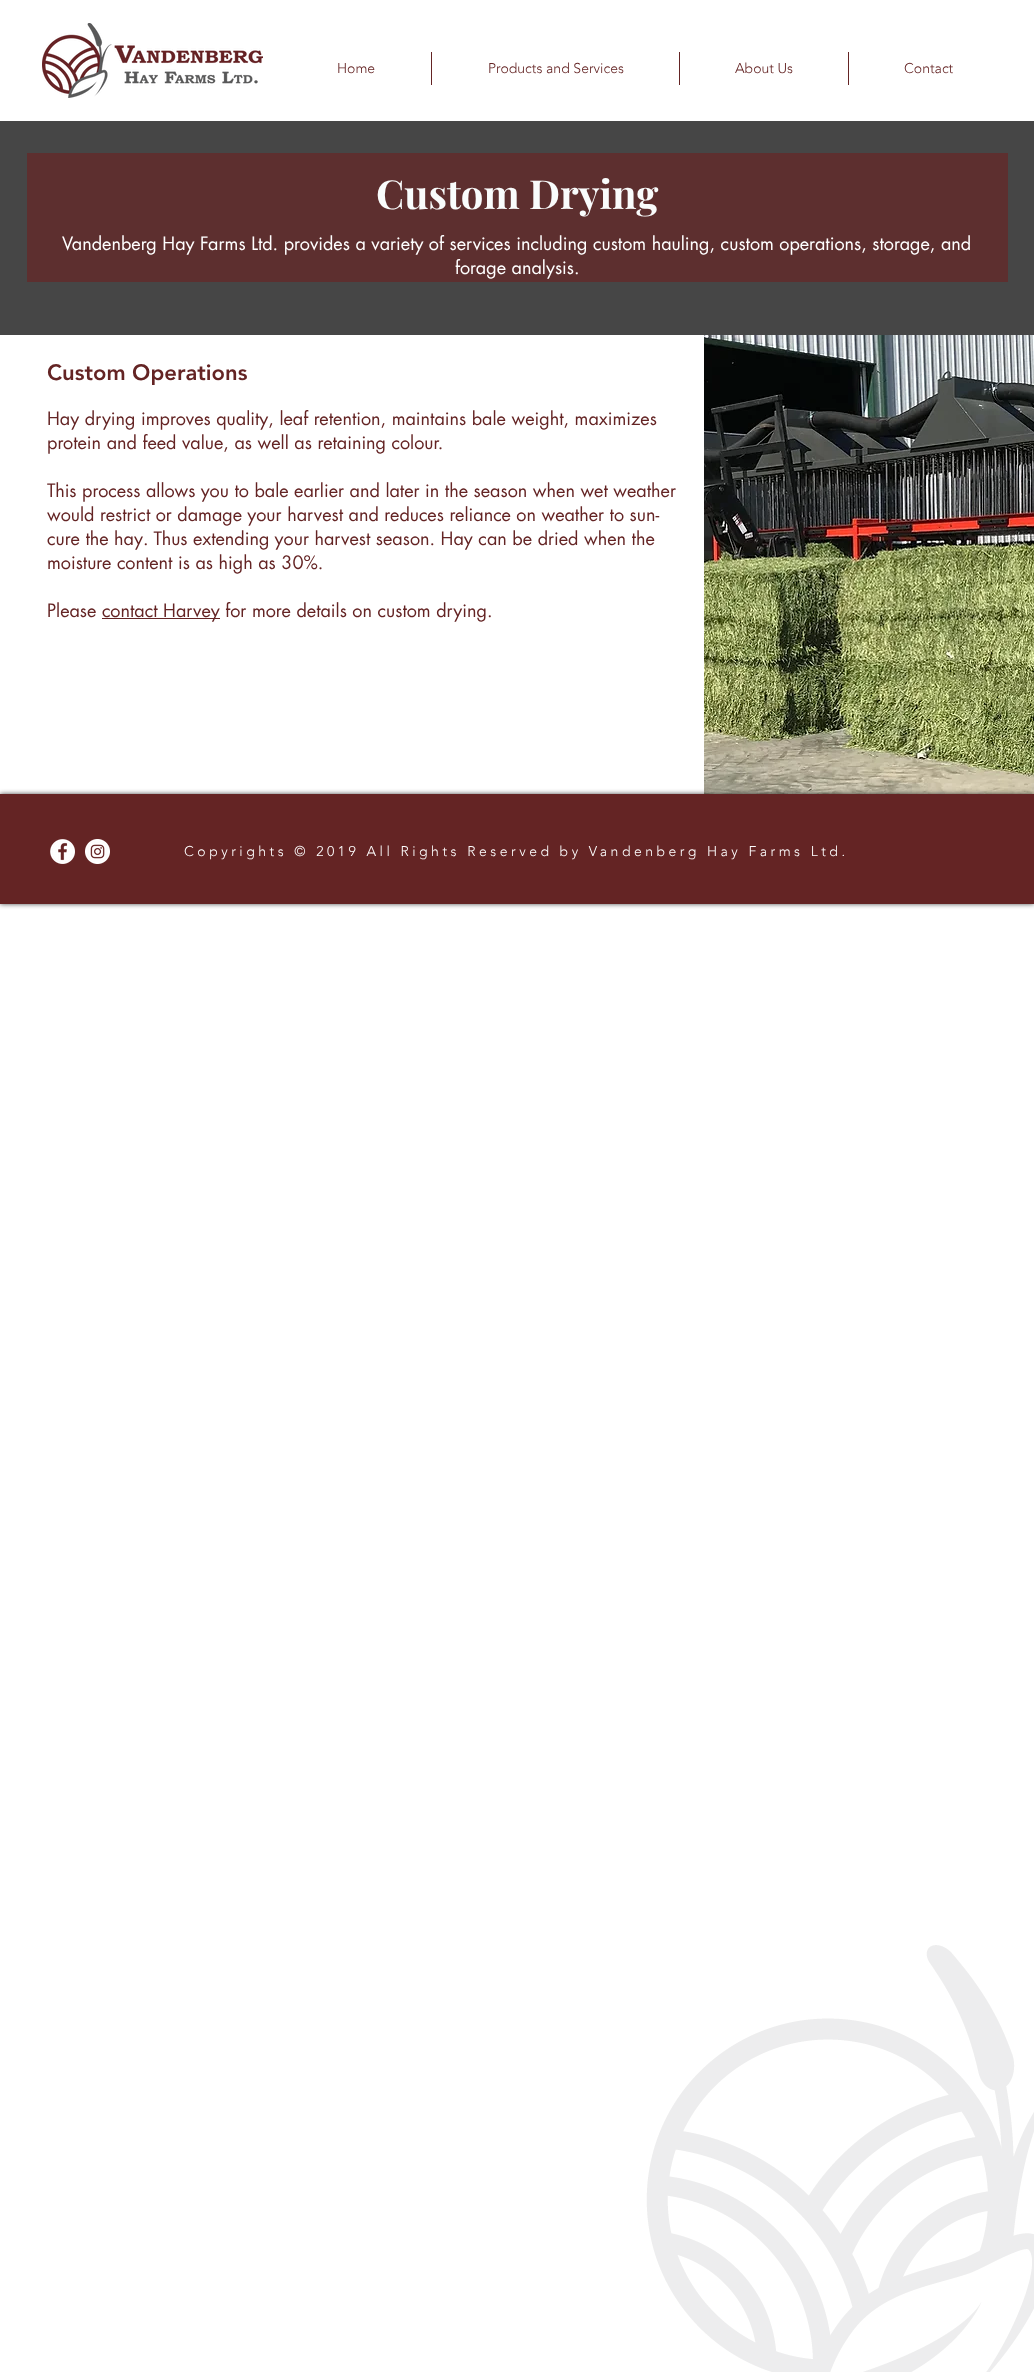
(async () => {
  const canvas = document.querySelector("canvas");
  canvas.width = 1034;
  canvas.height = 2372;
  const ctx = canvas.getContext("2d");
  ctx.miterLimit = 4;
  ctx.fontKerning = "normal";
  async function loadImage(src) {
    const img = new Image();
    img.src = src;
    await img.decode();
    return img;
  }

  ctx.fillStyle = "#ffffff";
  ctx.fillRect(0, 0, 1034, 2372);
  ctx.drawImage(await loadImage("img/1.png"), 42, 23, 221, 75);
  for (const [x, y, w, h, color] of [
    [431, 52, 1, 33, "#642424"],
    [679, 52, 1, 33, "#642424"],
    [848, 52, 1, 33, "#642424"],
    [0, 121, 1034, 214, "#464646"],
    [27, 153, 981, 129, "#5d2f2f"],
    [102, 618, 118, 1, "#642424"],
  ]) {
    ctx.fillStyle = color;
    ctx.fillRect(x, y, w, h);
  }
  ctx.drawImage(await loadImage("img/2.png"), 704, 335, 330, 459);
  ctx.fillStyle = "rgba(0, 0, 0, 0.7)";
  ctx.filter = "blur(2.5px)";
  ctx.beginPath();
  ctx.rect(0, 794, 1034, 110);
  ctx.fill();
  ctx.filter = "none";
  ctx.fillStyle = "#642424";
  ctx.fillRect(0, 794, 1034, 110);
  ctx.drawImage(await loadImage("img/3.png"), 50, 839, 25, 25);
  ctx.drawImage(await loadImage("img/4.png"), 85, 839, 25, 25);
  ctx.drawImage(await loadImage("img/5.png"), 646, 1945, 388, 427);
  ctx.font = "300 14px 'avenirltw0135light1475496'";
  for (const [text, x, y] of [
    ["Home", 337, 73],
    ["Products and Services", 488, 73],
    ["About Us", 735, 73],
    ["Contact", 904, 73],
  ]) {
    ctx.fillText(text, x, y);
  }
  ctx.font = "bold 40px Playfair Display";
  ctx.fillStyle = "#f9fcfc";
  ctx.fillText("Custom Drying", 376, 209);
  ctx.font = "18px futura";
  ctx.fillStyle = "#ffffff";
  ctx.fillText("Vandenberg Hay Farms Ltd. provides a variety of services including custom hauling, custom operations, storage, and", 62, 250);
  ctx.fillText("forage analysis.", 455, 274);
  ctx.font = "900 22px 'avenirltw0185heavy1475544'";
  ctx.fillStyle = "#642424";
  ctx.fillText("Custom Operations", 47, 380);
  ctx.font = "18px futura";
  for (const [text, x, y] of [
    ["Hay drying improves quality, leaf retention, maintains bale weight, maximizes", 47, 425],
    ["protein and feed value, as well as retaining colour.", 47, 449],
    ["This process allows you to bale earlier and later in the season when wet weather", 47, 497],
    ["would restrict or damage your harvest and reduces reliance on weather to sun-", 47, 521],
    ["cure the hay. Thus extending your harvest season. Hay can be dried when the", 47, 545],
    ["moisture content is as high as 30%.", 47, 569],
    ["Please", 47, 617],
    ["contact Harvey for more details on custom drying.", 102, 617],
  ]) {
    ctx.fillText(text, x, y);
  }
  ctx.letterSpacing = "3.5px";
  ctx.font = "300 14px 'avenirltw0135light1475496'";
  ctx.fillStyle = "#ffffff";
  ctx.fillText("Copyrights © 2019 All Rights Reserved by Vandenberg Hay Farms Ltd.", 184, 856);
})();
